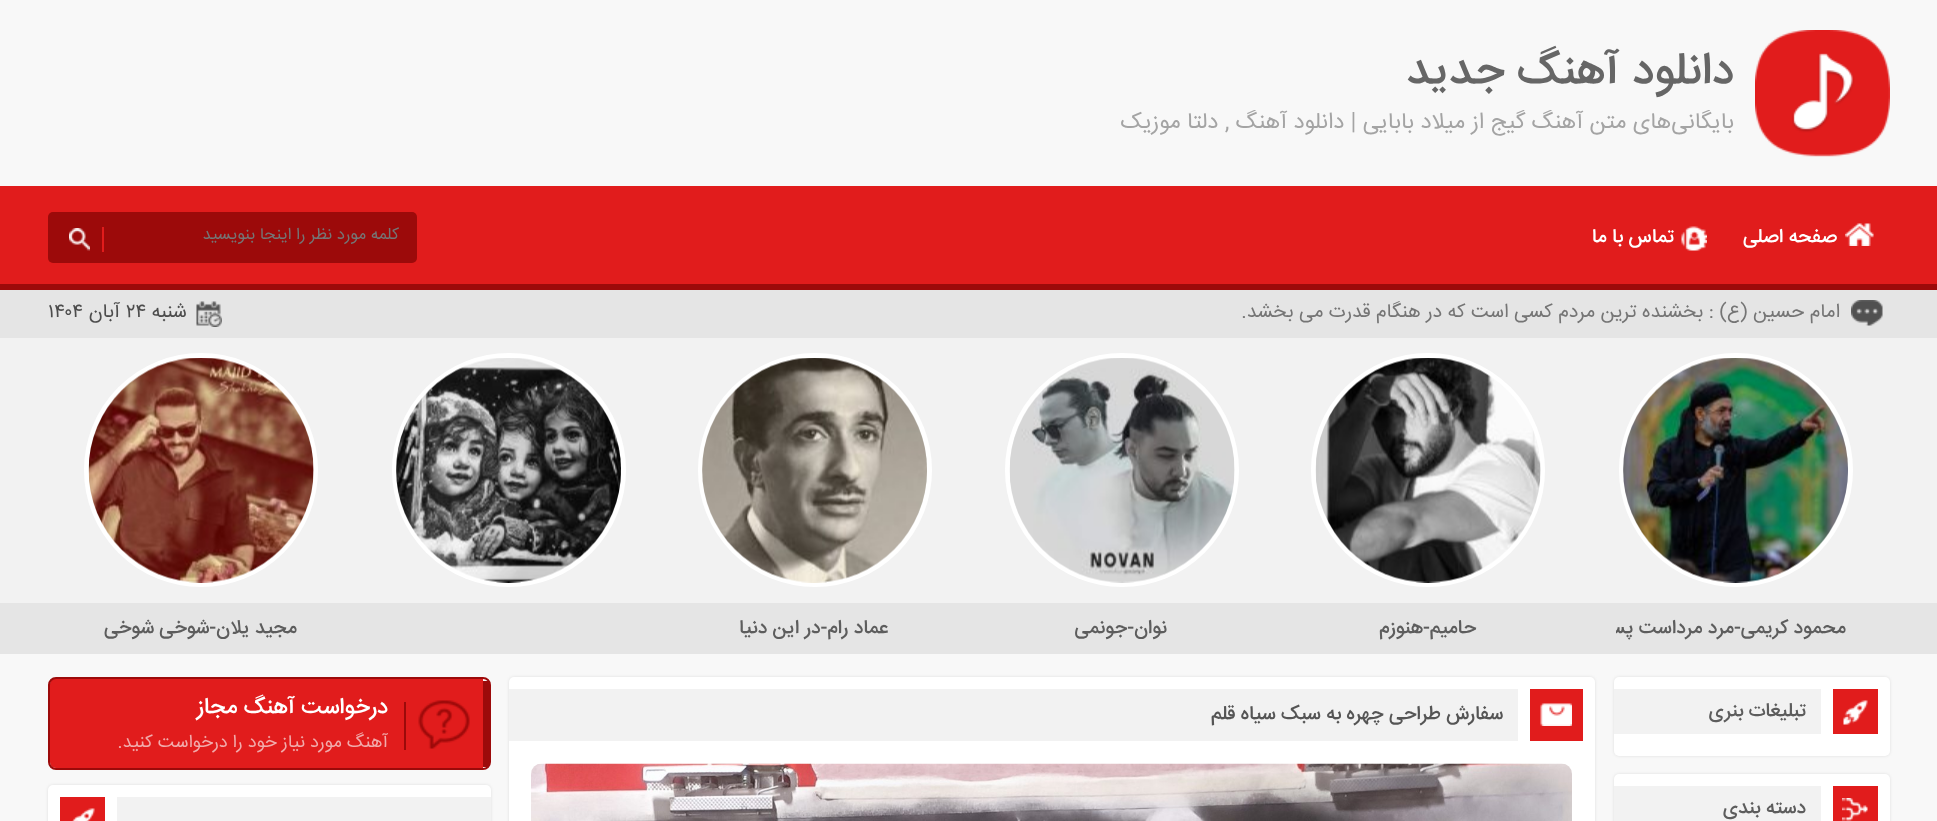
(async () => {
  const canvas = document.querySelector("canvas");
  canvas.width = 1937;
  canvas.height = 821;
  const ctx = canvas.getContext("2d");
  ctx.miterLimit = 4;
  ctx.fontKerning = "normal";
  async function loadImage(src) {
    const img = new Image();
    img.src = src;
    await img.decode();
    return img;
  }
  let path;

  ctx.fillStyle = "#f8f8f8";
  ctx.fillRect(0, 0, 1937, 821);
  ctx.drawImage(await loadImage("img/1.png"), 1755, 30, 135, 127);
  ctx.fillStyle = "#e11c1c";
  ctx.fillRect(0, 186, 1937, 98);
  ctx.fillStyle = "#9c0a0a";
  ctx.fillRect(0, 284, 1937, 6);
  ctx.drawImage(await loadImage("img/2.png"), 1845, 223, 29, 23);
  ctx.drawImage(await loadImage("img/3.png"), 1681, 226, 26, 25);
  ctx.beginPath();
  ctx.roundRect(48, 212, 369, 51, 5);
  ctx.fill();
  ctx.fillStyle = "#e11c1c";
  ctx.fillRect(102, 227, 2, 25);
  ctx.drawImage(await loadImage("img/4.png"), 69, 228, 21, 23);
  ctx.fillStyle = "#e5e5e5";
  ctx.fillRect(0, 290, 1937, 48);
  ctx.drawImage(await loadImage("img/5.png"), 1851, 300, 32, 26);
  ctx.drawImage(await loadImage("img/6.png"), 196, 301, 26, 26);
  ctx.fillStyle = "#f2f2f2";
  ctx.fillRect(0, 338, 1937, 265);
  ctx.fillStyle = "#e5e5e5";
  ctx.fillRect(0, 603, 1937, 51);
  ctx.beginPath();
  ctx.arc(509, 470, 114.5, 0, Math.PI * 2);
  ctx.strokeStyle = "#ffffff";
  ctx.lineWidth = 5;
  ctx.stroke();
  ctx.drawImage(await loadImage("img/7.png"), 396, 358, 225, 225);
  ctx.beginPath();
  ctx.arc(1736, 470, 114.5, 0, Math.PI * 2);
  ctx.stroke();
  ctx.drawImage(await loadImage("img/8.png"), 1623, 358, 225, 225);
  ctx.beginPath();
  ctx.arc(1428, 470, 114.5, 0, Math.PI * 2);
  ctx.stroke();
  ctx.drawImage(await loadImage("img/9.png"), 1315, 358, 226, 225);
  ctx.beginPath();
  ctx.arc(1122, 470, 114.5, 0, Math.PI * 2);
  ctx.stroke();
  ctx.drawImage(await loadImage("img/10.png"), 1009, 358, 226, 225);
  ctx.beginPath();
  ctx.arc(815, 470, 114.5, 0, Math.PI * 2);
  ctx.stroke();
  ctx.drawImage(await loadImage("img/11.png"), 702, 358, 225, 225);
  ctx.beginPath();
  ctx.arc(201, 470, 114.5, 0, Math.PI * 2);
  ctx.stroke();
  ctx.drawImage(await loadImage("img/12.png"), 88, 358, 226, 225);
  ctx.fillStyle = "rgba(0, 0, 0, 0.1)";
  ctx.filter = "blur(1.5px)";
  ctx.beginPath();
  ctx.roundRect(1614, 677, 276, 79, 5);
  ctx.fill();
  ctx.filter = "none";
  ctx.fillStyle = "#ffffff";
  ctx.beginPath();
  ctx.roundRect(1614, 677, 276, 79, 5);
  ctx.fill();
  ctx.fillStyle = "#f2f2f2";
  ctx.fillRect(1614, 689, 207, 45);
  ctx.fillStyle = "#e11c1c";
  ctx.fillRect(1833, 689, 45, 45);
  ctx.drawImage(await loadImage("img/13.png"), 1843, 700, 25, 25);
  ctx.fillStyle = "rgba(0, 0, 0, 0.1)";
  ctx.filter = "blur(1.5px)";
  ctx.beginPath();
  ctx.roundRect(1614, 774, 276, 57, 5);
  ctx.fill();
  ctx.filter = "none";
  ctx.fillStyle = "#ffffff";
  ctx.beginPath();
  ctx.roundRect(1614, 774, 276, 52, 5);
  ctx.fill();
  ctx.fillStyle = "#f2f2f2";
  ctx.fillRect(1614, 786, 207, 35);
  ctx.fillStyle = "#e11c1c";
  ctx.fillRect(1833, 786, 45, 35);
  ctx.drawImage(await loadImage("img/14.png"), 1842, 798, 26, 23);
  ctx.fillStyle = "rgba(0, 0, 0, 0.1)";
  ctx.filter = "blur(1.5px)";
  ctx.beginPath();
  ctx.roundRect(509, 677, 1086, 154, 5);
  ctx.fill();
  ctx.filter = "none";
  ctx.fillStyle = "#ffffff";
  ctx.beginPath();
  ctx.roundRect(509, 677, 1086, 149, 5);
  ctx.fill();
  ctx.fillStyle = "#f2f2f2";
  ctx.fillRect(509, 689, 1009, 52);
  ctx.fillStyle = "#e11c1c";
  ctx.fillRect(1530, 689, 53, 52);
  ctx.drawImage(await loadImage("img/15.png"), 1540, 703, 32, 23);
  ctx.drawImage(await loadImage("img/16.png"), 531, 763, 1041, 58);
  path = new Path2D("M56 678H483V768H56C52 768 50 765 50 762V684C50 681 52 678 56 678Z");
  ctx.fill(path);
  ctx.beginPath();
  ctx.roundRect(49, 678, 441, 91, 7);
  ctx.strokeStyle = "#9c0a0a";
  ctx.lineWidth = 2;
  ctx.stroke();
  ctx.fillStyle = "#9c0a0a";
  ctx.fillRect(483, 681, 6, 86);
  ctx.drawImage(await loadImage("img/17.png"), 418, 700, 52, 49);
  ctx.fillRect(404, 702, 2, 48);
  ctx.fillStyle = "rgba(0, 0, 0, 0.1)";
  ctx.filter = "blur(1.5px)";
  ctx.beginPath();
  ctx.roundRect(48, 785, 443, 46, 5);
  ctx.fill();
  ctx.filter = "none";
  ctx.fillStyle = "#ffffff";
  ctx.beginPath();
  ctx.roundRect(48, 785, 443, 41, 5);
  ctx.fill();
  ctx.fillStyle = "#f2f2f2";
  ctx.fillRect(117, 797, 374, 24);
  ctx.fillStyle = "#e11c1c";
  ctx.fillRect(60, 797, 45, 24);
  ctx.drawImage(await loadImage("img/18.png"), 72, 808, 23, 13);
  ctx.direction = "rtl";
  ctx.font = "500 45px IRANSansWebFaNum";
  ctx.fillStyle = "#666666";
  ctx.fillText("دانلود آهنگ جدید", 1734, 83);
  ctx.save();
  ctx.beginPath();
  ctx.rect(998, 110, 736, 27);
  ctx.clip();
  ctx.font = "22.5px IRANSansWebFaNum";
  ctx.fillStyle = "#a4a4a4";
  ctx.fillText("بایگانی‌های متن آهنگ گیج از میلاد بابایی | دانلود آهنگ , دلتا موزیک", 1734, 128);
  ctx.restore();
  ctx.font = "500 19.5px IRANSansWebFaNum";
  ctx.fillStyle = "#ffffff";
  ctx.fillText("صفحه اصلی", 1837, 242);
  ctx.fillText("تماس با ما", 1674, 242);
  ctx.font = "16.5px IRANSansWebFaNum";
  ctx.fillStyle = "#757575";
  ctx.fillText("كلمه مورد نظر را اينجا بنويسيد", 399, 239);
  ctx.font = "19.5px IRANSansWebFaNum";
  ctx.fillText("امام حسین (ع) : بخشنده ترین مردم کسی است که در هنگام قدرت می بخشد.", 1840, 317);
  ctx.fillStyle = "#4c4c4c";
  ctx.fillText("شنبه", 187, 317);
  ctx.direction = "ltr";
  ctx.fillText("۲۴", 126, 317);
  ctx.direction = "rtl";
  ctx.fillText("آبان", 120, 317);
  ctx.direction = "ltr";
  ctx.fillText("۱۴۰۴", 48, 317);
  ctx.save();
  ctx.beginPath();
  ctx.rect(1616, 603, 237, 51);
  ctx.clip();
  ctx.direction = "rtl";
  ctx.font = "500 19.5px IRANSansWebFaNum";
  ctx.fillStyle = "#5d5d5d";
  ctx.fillText("محمود کریمی-مرد مرداست پسرت", 1846, 633);
  ctx.restore();
  ctx.direction = "rtl";
  ctx.font = "500 19.5px IRANSansWebFaNum";
  ctx.fillStyle = "#5d5d5d";
  for (const [text, x, y] of [
    ["حامیم-هنوزم", 1476, 633],
    ["نوان-جونمی", 1167, 633],
    ["عماد رام-در این دنیا", 888, 633],
    ["مجید یلان-شوخی شوخی", 297, 633],
    ["تبلیغات بنری", 1806, 716],
    ["دسته بندی", 1806, 813],
  ]) {
    ctx.fillText(text, x, y);
  }
  ctx.fillStyle = "#555555";
  ctx.fillText("سفارش طراحی چهره به سبک سیاه قلم", 1503, 719);
  ctx.font = "500 22.5px IRANSansWebFaNum";
  ctx.fillStyle = "#ffffff";
  ctx.fillText("درخواست آهنگ مجاز", 388, 713);
  ctx.font = "18px IRANSansWebFaNum";
  ctx.fillStyle = "#f1abab";
  ctx.fillText("آهنگ مورد نیاز خود را درخواست کنید.", 388, 747);
})();
